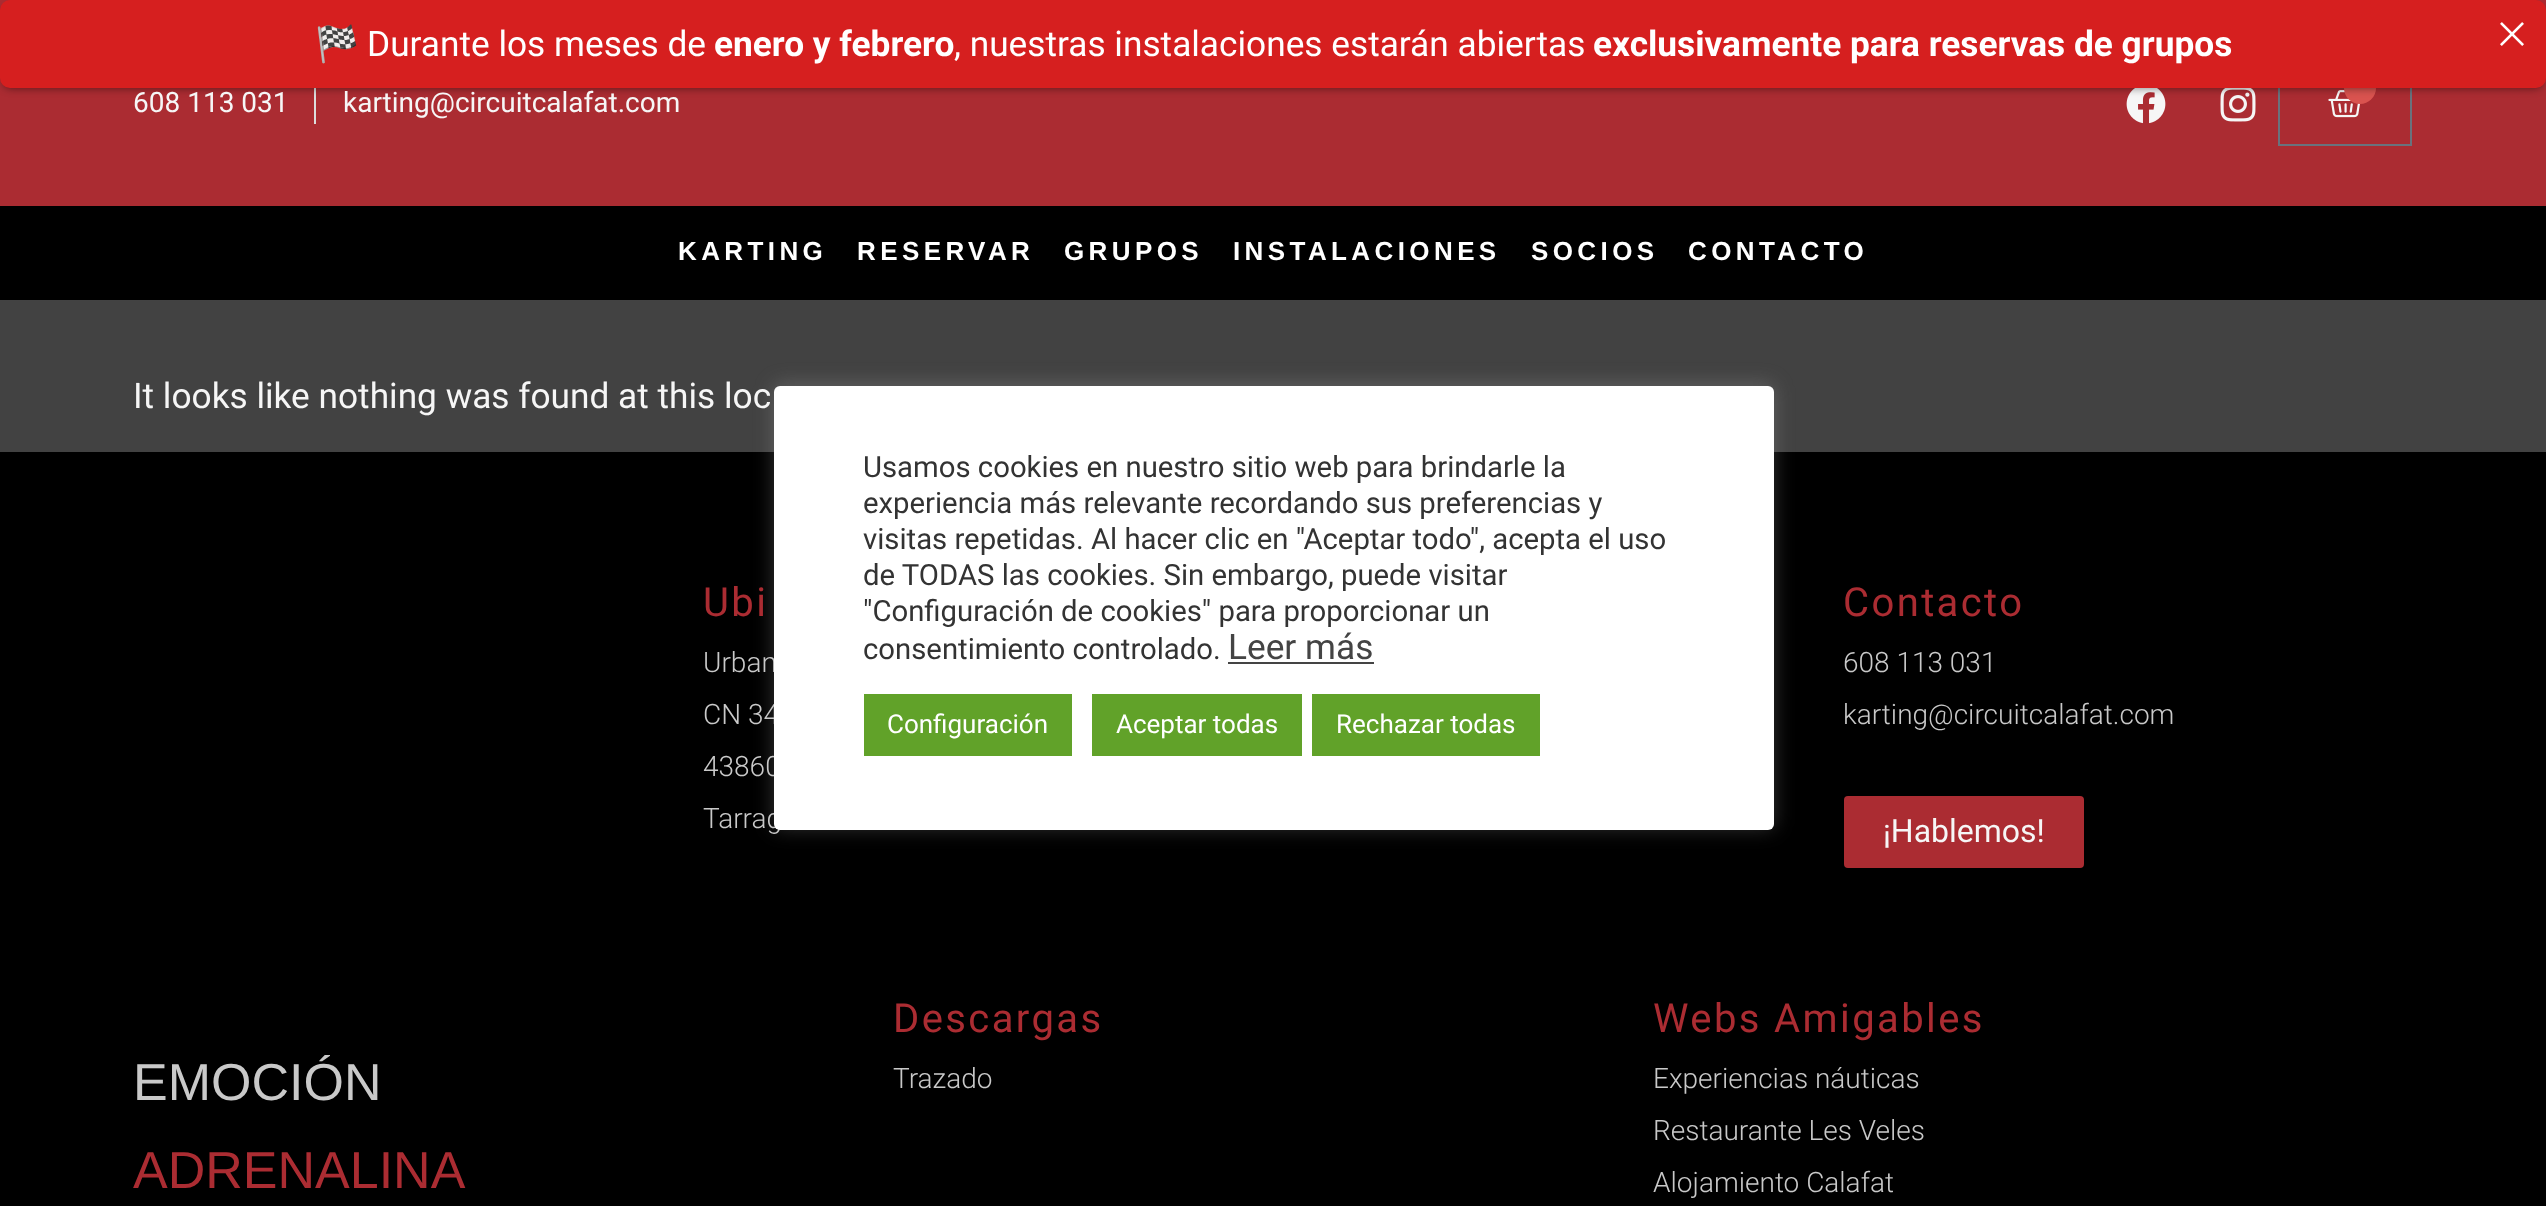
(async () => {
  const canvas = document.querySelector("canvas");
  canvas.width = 2546;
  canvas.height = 1206;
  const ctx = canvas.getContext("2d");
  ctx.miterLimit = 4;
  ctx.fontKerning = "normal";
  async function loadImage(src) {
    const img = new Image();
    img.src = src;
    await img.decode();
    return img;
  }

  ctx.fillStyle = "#424242";
  ctx.fillRect(0, 0, 2546, 1206);
  ctx.fillStyle = "#ab2c32";
  ctx.fillRect(0, 0, 2546, 206);
  ctx.fillStyle = "#dddddd";
  ctx.fillRect(314, 82, 2, 42);
  ctx.drawImage(await loadImage("img/2.png"), 2126, 88, 40, 36);
  ctx.drawImage(await loadImage("img/3.png"), 2220, 88, 36, 34);
  ctx.strokeStyle = "#69727d";
  ctx.lineWidth = 2;
  ctx.strokeRect(2279, 61, 132, 84);
  ctx.drawImage(await loadImage("img/4.png"), 2328, 90, 33, 28);
  ctx.fillStyle = "#d9534f";
  ctx.beginPath();
  ctx.arc(2360, 88, 16, 0, Math.PI * 2);
  ctx.fill();
  ctx.fillStyle = "rgba(0, 0, 0, 0.5)";
  ctx.filter = "blur(4px)";
  ctx.beginPath();
  ctx.roundRect(4, 8, 2538, 80, 6);
  ctx.fill();
  ctx.filter = "none";
  ctx.fillStyle = "#d61f1f";
  ctx.beginPath();
  ctx.roundRect(0, 0, 2546, 88, 10);
  ctx.fill();
  ctx.drawImage(await loadImage("img/1.png"), 2500, 22, 24, 24);
  ctx.fillStyle = "#000000";
  ctx.fillRect(0, 206, 2546, 94);
  ctx.fillRect(0, 452, 2546, 754);
  ctx.fillStyle = "rgba(172, 171, 171, 0.3)";
  ctx.filter = "blur(10px)";
  ctx.beginPath();
  ctx.roundRect(774, 384, 1000, 444, 6);
  ctx.fill();
  ctx.filter = "none";
  ctx.fillStyle = "#ab2c32";
  ctx.beginPath();
  ctx.roundRect(1844, 796, 240, 72, 4);
  ctx.fill();
  ctx.font = "35.25px Noto Color Emoji";
  ctx.fillStyle = "#ffffff";
  ctx.fillText("🏁", 315, 56);
  ctx.font = "35.25px Roboto";
  ctx.fillText("Durante los meses de", 367, 56);
  ctx.font = "bold 35.25px Roboto";
  ctx.fillText("enero y febrero", 714, 56);
  ctx.font = "35.25px Roboto";
  ctx.fillText(", nuestras instalaciones estarán abiertas", 954, 56);
  ctx.font = "bold 35.25px Roboto";
  ctx.fillText("exclusivamente para reservas de grupos", 1593, 56);
  ctx.font = "28px Roboto";
  ctx.fillStyle = "#f6f6f6";
  ctx.fillText("608 113 031", 133, 112);
  ctx.fillText("karting@circuitcalafat.com", 343, 112);
  ctx.letterSpacing = "4.4px";
  ctx.font = "bold 26px Liberation Sans";
  ctx.fillStyle = "#ffffff";
  for (const [text, x, y] of [
    ["KARTING", 678, 260],
    ["RESERVAR", 857, 260],
    ["GRUPOS", 1064, 260],
    ["INSTALACIONES", 1233, 260],
    ["SOCIOS", 1531, 260],
    ["CONTACTO", 1688, 260],
  ]) {
    ctx.fillText(text, x, y);
  }
  ctx.letterSpacing = "0px";
  ctx.font = "35.25px Roboto";
  ctx.fillStyle = "#f6f6f6";
  ctx.fillText("It looks like nothing was found at this loc", 133, 408);
  ctx.letterSpacing = "2.4px";
  ctx.font = "40px Roboto";
  ctx.fillStyle = "#ab2c32";
  ctx.fillText("Ubi", 703, 616);
  ctx.letterSpacing = "0px";
  ctx.font = "300 28px Roboto";
  ctx.fillStyle = "#c9c9c9";
  for (const [text, x, y] of [
    ["Urban", 703, 672],
    ["CN 34", 703, 724],
    ["43860", 703, 776],
    ["Tarrag", 703, 828],
  ]) {
    ctx.fillText(text, x, y);
  }
  ctx.fillStyle = "#ffffff";
  ctx.beginPath();
  ctx.roundRect(774, 386, 1000, 444, 6);
  ctx.fill();
  ctx.fillStyle = "#61a229";
  ctx.fillRect(1312, 694, 228, 62);
  ctx.font = "26px Roboto";
  ctx.fillStyle = "#ffffff";
  ctx.fillText("Rechazar todas", 1336, 733);
  ctx.fillStyle = "#61a229";
  ctx.fillRect(1092, 694, 210, 62);
  ctx.fillStyle = "#ffffff";
  ctx.fillText("Aceptar todas", 1116, 733);
  ctx.fillStyle = "#61a229";
  ctx.fillRect(864, 694, 208, 62);
  ctx.fillStyle = "#ffffff";
  ctx.fillText("Configuración", 887, 733);
  ctx.font = "35.25px Roboto";
  ctx.fillStyle = "#444444";
  ctx.fillText("Leer más", 1228, 659);
  ctx.fillRect(1228, 662, 146, 2);
  ctx.font = "29.3px Roboto";
  ctx.fillStyle = "#333333";
  for (const [text, x, y] of [
    ["consentimiento controlado.", 863, 659],
    ["\"Configuración de cookies\" para proporcionar un", 863, 621],
    ["de TODAS las cookies. Sin embargo, puede visitar", 863, 585],
    ["visitas repetidas. Al hacer clic en \"Aceptar todo\", acepta el uso", 863, 549],
    ["experiencia más relevante recordando sus preferencias y", 863, 513],
    ["Usamos cookies en nuestro sitio web para brindarle la", 863, 477],
  ]) {
    ctx.fillText(text, x, y);
  }
  ctx.letterSpacing = "2.4px";
  ctx.font = "40px Roboto";
  ctx.fillStyle = "#ab2c32";
  ctx.fillText("Contacto", 1843, 616);
  ctx.letterSpacing = "0px";
  ctx.font = "300 28px Roboto";
  ctx.fillStyle = "#c9c9c9";
  ctx.fillText("608 113 031", 1843, 672);
  ctx.fillText("karting@circuitcalafat.com", 1843, 724);
  ctx.font = "32px Roboto";
  ctx.fillStyle = "#f6f6f6";
  ctx.fillText("¡Hablemos!", 1883, 842);
  ctx.font = "52px Liberation Sans";
  ctx.fillStyle = "#c9c9c9";
  ctx.fillText("EMOCIÓN", 133, 1100);
  ctx.fillStyle = "#ab2c32";
  ctx.fillText("ADRENALINA", 133, 1188);
  ctx.letterSpacing = "2.4px";
  ctx.font = "40px Roboto";
  ctx.fillText("Descargas", 893, 1032);
  ctx.letterSpacing = "0px";
  ctx.font = "300 28px Roboto";
  ctx.fillStyle = "#c9c9c9";
  ctx.fillText("Trazado", 893, 1088);
  ctx.letterSpacing = "2.4px";
  ctx.font = "40px Roboto";
  ctx.fillStyle = "#ab2c32";
  ctx.fillText("Webs Amigables", 1653, 1032);
  ctx.letterSpacing = "0px";
  ctx.font = "300 28px Roboto";
  ctx.fillStyle = "#c9c9c9";
  for (const [text, x, y] of [
    ["Experiencias náuticas", 1653, 1088],
    ["Restaurante Les Veles", 1653, 1140],
    ["Alojamiento Calafat", 1653, 1192],
  ]) {
    ctx.fillText(text, x, y);
  }
})();
